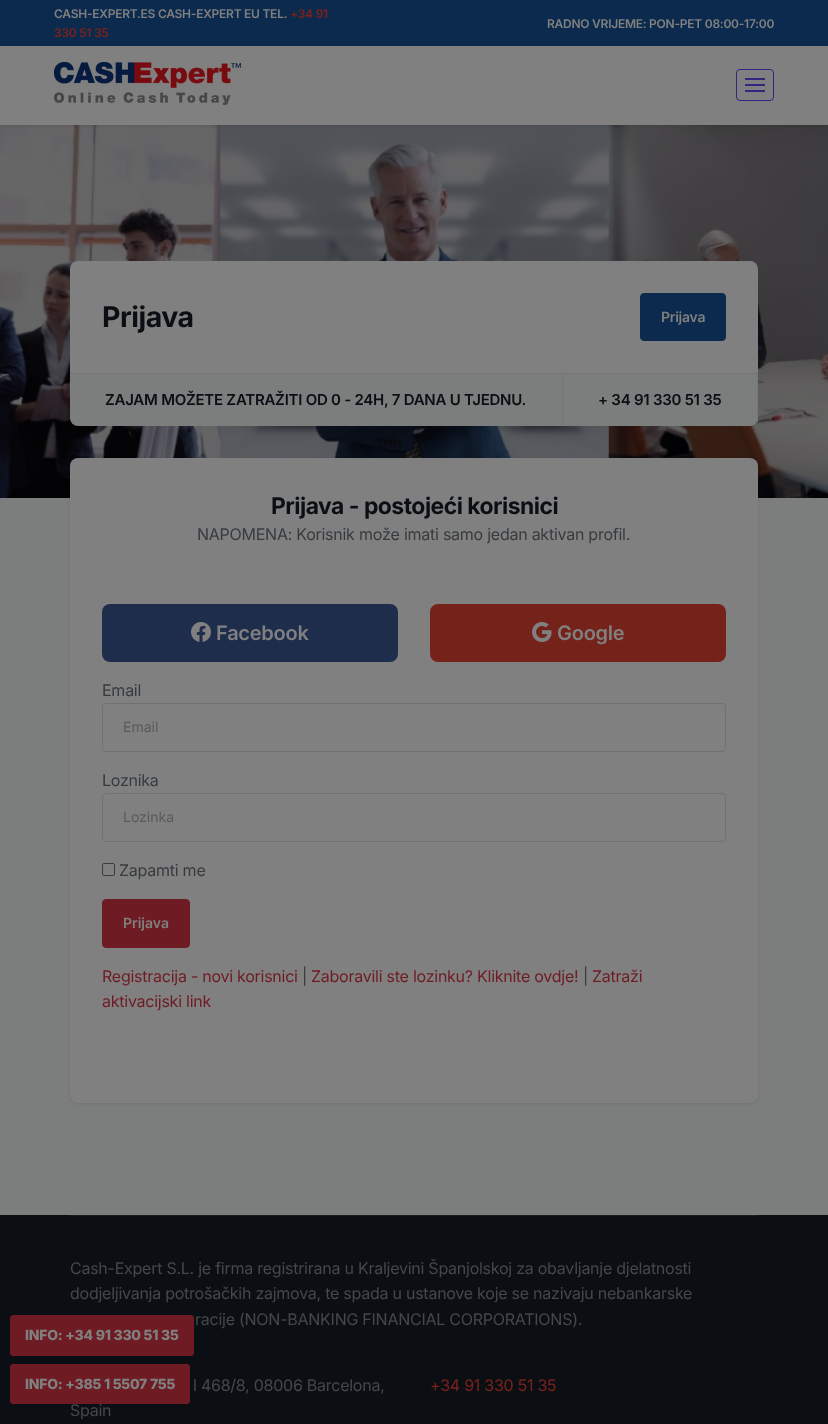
(async () => {
  const canvas = document.querySelector("canvas");
  canvas.width = 828;
  canvas.height = 1424;
  const ctx = canvas.getContext("2d");
  ctx.miterLimit = 4;
  ctx.fontKerning = "normal";
  async function loadImage(src) {
    const img = new Image();
    img.src = src;
    await img.decode();
    return img;
  }

  ctx.fillStyle = "#7c7d7d";
  ctx.fillRect(0, 0, 828, 1424);
  ctx.fillStyle = "#0b2a4d";
  ctx.fillRect(0, 0, 828, 46);
  ctx.drawImage(await loadImage("img/2.png"), 0, 125, 828, 373);
  ctx.fillStyle = "rgba(2, 0, 36, 0.09)";
  ctx.filter = "blur(1.5px)";
  ctx.beginPath();
  ctx.rect(0, 47, 828, 79);
  ctx.fill();
  ctx.filter = "none";
  ctx.fillStyle = "#808080";
  ctx.fillRect(0, 46, 828, 79);
  ctx.drawImage(await loadImage("img/1.png"), 54, 62, 187, 43);
  ctx.beginPath();
  ctx.roundRect(736.5, 69.5, 37, 31, 3.5);
  ctx.strokeStyle = "#312680";
  ctx.stroke();
  for (const [x, y, w, h, color] of [
    [745, 78, 20, 2, "#312680"],
    [745, 84, 20, 2, "#312680"],
    [745, 90, 20, 2, "#312680"],
  ]) {
    ctx.fillStyle = color;
    ctx.fillRect(x, y, w, h);
  }
  ctx.fillStyle = "#808080";
  ctx.beginPath();
  ctx.roundRect(70, 261, 688, 112, [8, 8, 0, 0]);
  ctx.fill();
  ctx.fillStyle = "#0b2a4d";
  ctx.beginPath();
  ctx.roundRect(640.5, 293.5, 85, 47, 3.5);
  ctx.fill();
  ctx.strokeStyle = "#0b2a4d";
  ctx.stroke();
  ctx.fillStyle = "#757678";
  ctx.fillRect(70, 373, 688, 1);
  ctx.fillStyle = "#7c7d7d";
  ctx.beginPath();
  ctx.roundRect(70, 374, 493, 52, [0, 0, 0, 8]);
  ctx.fill();
  ctx.fillStyle = "#757678";
  ctx.fillRect(562, 374, 1, 52);
  ctx.fillStyle = "#7c7d7d";
  ctx.beginPath();
  ctx.roundRect(563, 374, 195, 52, [0, 0, 8, 0]);
  ctx.fill();
  ctx.fillStyle = "#757678";
  ctx.fillRect(757, 374, 1, 48);
  ctx.fillStyle = "rgba(2, 0, 36, 0.09)";
  ctx.filter = "blur(1.5px)";
  ctx.beginPath();
  ctx.roundRect(70, 459, 688, 645, 8);
  ctx.fill();
  ctx.filter = "none";
  ctx.fillStyle = "#808080";
  ctx.beginPath();
  ctx.roundRect(70, 458, 688, 645, 8);
  ctx.fill();
  ctx.fillStyle = "#1e2d4c";
  ctx.beginPath();
  ctx.roundRect(102, 604, 296, 58, 8);
  ctx.fill();
  ctx.drawImage(await loadImage("img/3.png"), 191, 622, 20, 20);
  ctx.fillStyle = "#75221b";
  ctx.beginPath();
  ctx.roundRect(430, 604, 296, 58, 8);
  ctx.fill();
  ctx.drawImage(await loadImage("img/4.png"), 532, 622, 20, 20);
  ctx.beginPath();
  ctx.roundRect(102.5, 703.5, 623, 48, 3.5);
  ctx.strokeStyle = "#6f7173";
  ctx.stroke();
  ctx.beginPath();
  ctx.roundRect(102.5, 793.5, 623, 48, 3.5);
  ctx.stroke();
  ctx.beginPath();
  ctx.roundRect(102.5, 863.5, 12, 12, 1.5);
  ctx.strokeStyle = "#3b3b3b";
  ctx.stroke();
  ctx.fillStyle = "#6e1b23";
  ctx.beginPath();
  ctx.roundRect(102.5, 899.5, 87, 48, 3.5);
  ctx.fill();
  ctx.strokeStyle = "#6e1b23";
  ctx.stroke();
  ctx.fillStyle = "#0b0f14";
  ctx.fillRect(0, 1215, 828, 209);
  ctx.fillStyle = "#1a1d20";
  ctx.fillRect(70, 1215, 688, 1);
  ctx.fillStyle = "#6e1b23";
  ctx.beginPath();
  ctx.roundRect(10.5, 1315.5, 183, 40, 2.5);
  ctx.fill();
  ctx.stroke();
  ctx.beginPath();
  ctx.roundRect(10.5, 1364.5, 179, 39, 2.5);
  ctx.fill();
  ctx.stroke();
  ctx.letterSpacing = "-0.25px";
  ctx.font = "600 12px Inter";
  ctx.fillStyle = "#808080";
  ctx.fillText("CASH-EXPERT.ES CASH-EXPERT EU TEL.", 54, 18);
  ctx.fillStyle = "#7a221b";
  ctx.fillText("+34 91", 290, 18);
  ctx.fillText("330 51 35", 54, 37);
  ctx.fillStyle = "#808080";
  ctx.fillText("RADNO VRIJEME: PON-PET 08:00-17:00", 547, 28);
  ctx.letterSpacing = "-0.5px";
  ctx.font = "bold 28.5px Inter";
  ctx.fillStyle = "#0b0f14";
  ctx.fillText("Prijava", 102, 327);
  ctx.letterSpacing = "-0.25px";
  ctx.font = "600 14px Inter";
  ctx.fillStyle = "#808080";
  ctx.fillText("Prijava", 661, 322);
  ctx.font = "600 15px Inter";
  ctx.fillStyle = "#0b0f14";
  ctx.fillText("ZAJAM MOŽETE ZATRAŽITI OD 0 - 24H, 7 DANA U TJEDNU.", 105, 405);
  ctx.fillText("+ 34 91 330 51 35", 598, 405);
  ctx.letterSpacing = "-0.5px";
  ctx.font = "bold 22.9px Inter";
  ctx.fillText("Prijava - postojeći korisnici", 271, 514);
  ctx.letterSpacing = "-0.25px";
  ctx.font = "16px Inter";
  ctx.fillStyle = "#363b3f";
  ctx.fillText("NAPOMENA: Korisnik može imati samo jedan aktivan profil.", 197, 540);
  ctx.font = "600 20px Inter";
  ctx.fillStyle = "#808080";
  ctx.fillText("Facebook", 216, 640);
  ctx.fillText("Google", 557, 640);
  ctx.font = "16px Inter";
  ctx.fillStyle = "#363b3f";
  ctx.fillText("Email", 102, 696);
  ctx.letterSpacing = "0px";
  ctx.font = "14px Inter";
  ctx.fillStyle = "#575b5f";
  ctx.fillText("Email", 123, 732);
  ctx.letterSpacing = "-0.25px";
  ctx.font = "16px Inter";
  ctx.fillStyle = "#363b3f";
  ctx.fillText("Loznika", 102, 786);
  ctx.letterSpacing = "0px";
  ctx.font = "14px Inter";
  ctx.fillStyle = "#575b5f";
  ctx.fillText("Lozinka", 123, 822);
  ctx.letterSpacing = "-0.25px";
  ctx.font = "16px Inter";
  ctx.fillStyle = "#363b3f";
  ctx.fillText("Zapamti me", 119, 876);
  ctx.letterSpacing = "0px";
  ctx.font = "600 14px Inter";
  ctx.fillStyle = "#808080";
  ctx.fillText("Prijava", 123, 928);
  ctx.letterSpacing = "-0.25px";
  ctx.font = "16px Inter";
  ctx.fillStyle = "#6e1b23";
  ctx.fillText("Registracija - novi korisnici", 102, 982);
  ctx.fillStyle = "#363b3f";
  ctx.fillText("|", 302, 982);
  ctx.fillStyle = "#6e1b23";
  ctx.fillText("Zaboravili ste lozinku? Kliknite ovdje!", 311, 982);
  ctx.fillStyle = "#363b3f";
  ctx.fillText("|", 583, 982);
  ctx.fillStyle = "#6e1b23";
  ctx.fillText("Zatraži", 592, 982);
  ctx.fillText("aktivacijski link", 102, 1007);
  ctx.fillStyle = "#45484a";
  for (const [text, x, y] of [
    ["Cash-Expert S.L. je firma registrirana u Kraljevini Španjolskoj za obavljanje djelatnosti", 70, 1274],
    ["dodjeljivanja potrošačkih zajmova, te spada u ustanove koje se nazivaju nebankarske", 70, 1299],
    ["racije (NON-BANKING FINANCIAL CORPORATIONS).", 195, 1325],
    ["l 468/8, 08006 Barcelona,", 193, 1391],
    ["Spain", 70, 1416],
  ]) {
    ctx.fillText(text, x, y);
  }
  ctx.fillStyle = "#7a221b";
  ctx.fillText("+34 91 330 51 35", 430, 1391);
  ctx.font = "800 14px Inter";
  ctx.fillStyle = "#808080";
  ctx.fillText("INFO: +34 91 330 51 35", 25, 1340);
  ctx.fillText("INFO: +385 1 5507 755", 25, 1389);
})();
